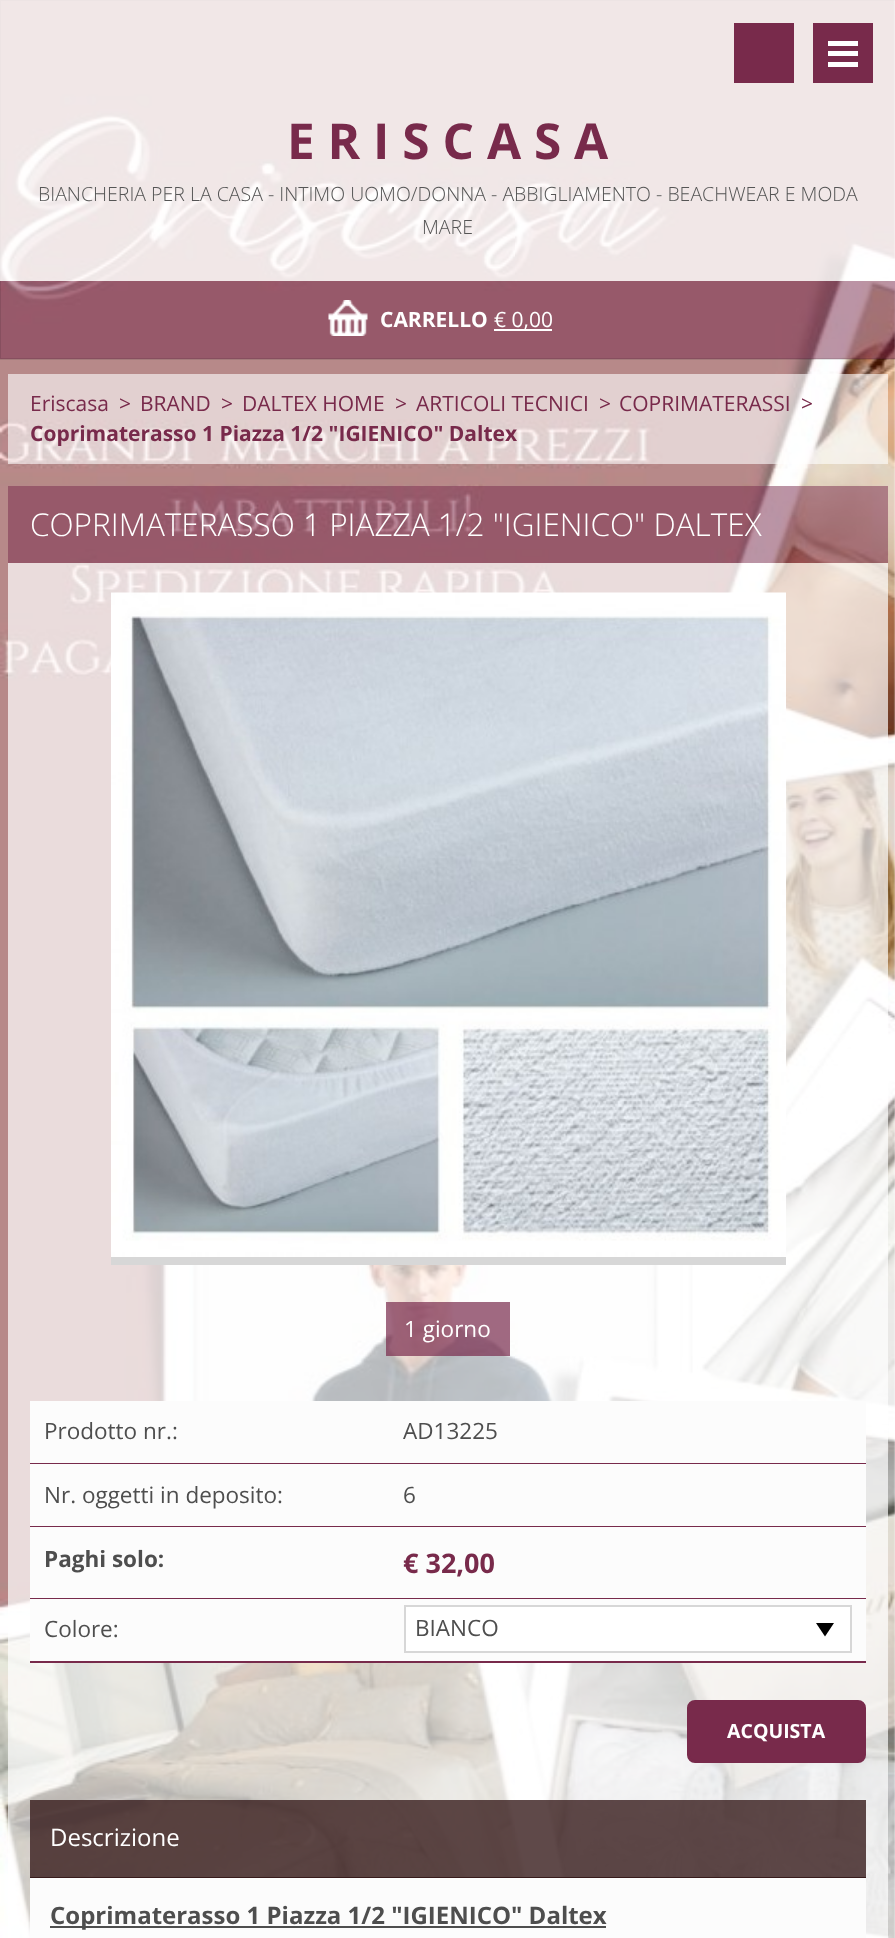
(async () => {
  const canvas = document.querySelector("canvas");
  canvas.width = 895;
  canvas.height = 1938;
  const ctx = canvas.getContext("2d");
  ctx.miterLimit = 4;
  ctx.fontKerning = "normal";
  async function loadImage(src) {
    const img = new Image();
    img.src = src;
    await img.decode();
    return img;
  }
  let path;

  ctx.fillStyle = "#ffffff";
  ctx.fillRect(0, 0, 895, 1938);
  ctx.drawImage(await loadImage("img/1.png"), 0, 0, 895, 1938);
  ctx.fillStyle = "rgba(120, 42, 75, 0.5)";
  ctx.fillRect(0, 281, 895, 78);
  ctx.strokeStyle = "rgba(0, 0, 0, 0.1)";
  ctx.lineWidth = 2;
  ctx.strokeRect(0, 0, 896, 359);
  for (const [x, y, w, h, color] of [
    [0, 0, 895, 177, "rgba(255, 255, 255, 0.8)"],
    [734, 23, 60, 60, "#782a4b"],
    [813, 23, 60, 60, "#782a4b"],
    [828, 41, 30, 5, "#ffffff"],
    [828, 51, 30, 5, "#ffffff"],
    [828, 62, 30, 5, "#ffffff"],
    [0, 177, 895, 104, "rgba(255, 255, 255, 0.8)"],
  ]) {
    ctx.fillStyle = color;
    ctx.fillRect(x, y, w, h);
  }
  ctx.drawImage(await loadImage("img/2.png"), 328, 300, 40, 36);
  for (const [x, y, w, h, color] of [
    [494, 329, 58, 2, "#ffffff"],
    [8, 374, 880, 90, "rgba(255, 255, 255, 0.6)"],
    [8, 486, 880, 77, "rgba(120, 42, 75, 0.5)"],
    [8, 563, 880, 1375, "rgba(255, 255, 255, 0.7)"],
  ]) {
    ctx.fillStyle = color;
    ctx.fillRect(x, y, w, h);
  }
  ctx.drawImage(await loadImage("img/3.png"), 111, 592, 675, 665);
  for (const [x, y, w, h, color] of [
    [111, 1257, 675, 8, "#d7d7d7"],
    [386, 1302, 124, 54, "rgba(120, 42, 75, 0.7)"],
    [30, 1401, 836, 62, "#fcfcfc"],
    [30, 1463, 836, 1, "#782a4b"],
    [30, 1464, 836, 62, "#fcfcfc"],
    [30, 1526, 836, 1, "#782a4b"],
    [30, 1527, 836, 71, "#fcfcfc"],
    [30, 1598, 836, 1, "#782a4b"],
    [30, 1599, 836, 62, "#fcfcfc"],
    [30, 1661, 836, 2, "#782a4b"],
  ]) {
    ctx.fillStyle = color;
    ctx.fillRect(x, y, w, h);
  }
  ctx.fillStyle = "#ffffff";
  ctx.beginPath();
  ctx.rect(405, 1606, 446, 46);
  ctx.fill();
  ctx.strokeStyle = "#d7d7d7";
  ctx.stroke();
  ctx.fillStyle = "#000000";
  path = new Path2D("M816 1623H834L825 1636.5Z");
  ctx.fill(path);
  ctx.fillStyle = "#782a4b";
  ctx.beginPath();
  ctx.roundRect(688.5, 1701.5, 176, 60, 6.5);
  ctx.fill();
  ctx.strokeStyle = "#782a4b";
  ctx.lineWidth = 3;
  ctx.stroke();
  for (const [x, y, w, h, color] of [
    [30, 1800, 836, 77, "rgba(55, 27, 27, 0.8)"],
    [30, 1877, 836, 1, "#371b1b"],
    [30, 1878, 836, 60, "#fcfcfc"],
    [50, 1926, 556, 2, "#4e4e4e"],
  ]) {
    ctx.fillStyle = color;
    ctx.fillRect(x, y, w, h);
  }
  ctx.font = "bold 49.5px Open Sans";
  ctx.fillStyle = "#782a4b";
  ctx.fillText("E R I S C A S A", 287, 159);
  ctx.font = "300 19.5px Open Sans";
  ctx.fillStyle = "#555555";
  ctx.fillText("BIANCHERIA PER LA CASA - INTIMO UOMO/DONNA - ABBIGLIAMENTO - BEACHWEAR E MODA", 38, 201);
  ctx.fillText("MARE", 422, 234);
  ctx.font = "bold 21px Open Sans";
  ctx.fillStyle = "#ffffff";
  ctx.fillText("CARRELLO", 380, 327);
  ctx.font = "21px Open Sans";
  ctx.fillText("€ 0,00", 494, 327);
  ctx.fillStyle = "#782a4b";
  for (const [text, x, y] of [
    ["Eriscasa", 30, 411],
    [">", 119, 411],
    ["BRAND", 140, 411],
    [">", 221, 411],
    ["DALTEX HOME", 242, 411],
    [">", 395, 411],
    ["ARTICOLI TECNICI", 416, 411],
    [">", 599, 411],
    ["COPRIMATERASSI", 619, 411],
    [">", 801, 411],
  ]) {
    ctx.fillText(text, x, y);
  }
  ctx.font = "bold 21px Open Sans";
  ctx.fillText("Coprimaterasso 1 Piazza 1/2 \"IGIENICO\" Daltex", 30, 441);
  ctx.font = "300 31.5px Open Sans";
  ctx.fillStyle = "#ffffff";
  ctx.fillText("COPRIMATERASSO 1 PIAZZA 1/2 \"IGIENICO\" DALTEX", 30, 536);
  ctx.font = "22.5px Open Sans";
  ctx.fillText("1 giorno", 404, 1337);
  ctx.fillStyle = "#4e4e4e";
  for (const [text, x, y] of [
    ["Prodotto nr.:", 44, 1439],
    ["AD13225", 403, 1439],
    ["Nr. oggetti in deposito:", 44, 1503],
    ["6", 403, 1503],
  ]) {
    ctx.fillText(text, x, y);
  }
  ctx.font = "bold 22.5px Open Sans";
  ctx.fillText("Paghi solo:", 44, 1567);
  ctx.font = "bold 27px Open Sans";
  ctx.fillStyle = "#782a4b";
  ctx.fillText("€ 32,00", 403, 1573);
  ctx.font = "22.5px Open Sans";
  ctx.fillStyle = "#4e4e4e";
  ctx.fillText("Colore:", 44, 1637);
  ctx.fillText("BIANCO", 415, 1636);
  ctx.font = "bold 19.5px Open Sans";
  ctx.fillStyle = "#ffffff";
  ctx.fillText("ACQUISTA", 727, 1738);
  ctx.font = "24px Open Sans";
  ctx.fillText("Descrizione", 50, 1846);
  ctx.font = "bold 24px Open Sans";
  ctx.fillStyle = "#4e4e4e";
  ctx.fillText("Coprimaterasso 1 Piazza 1/2 \"IGIENICO\" Daltex", 50, 1924);
})();
